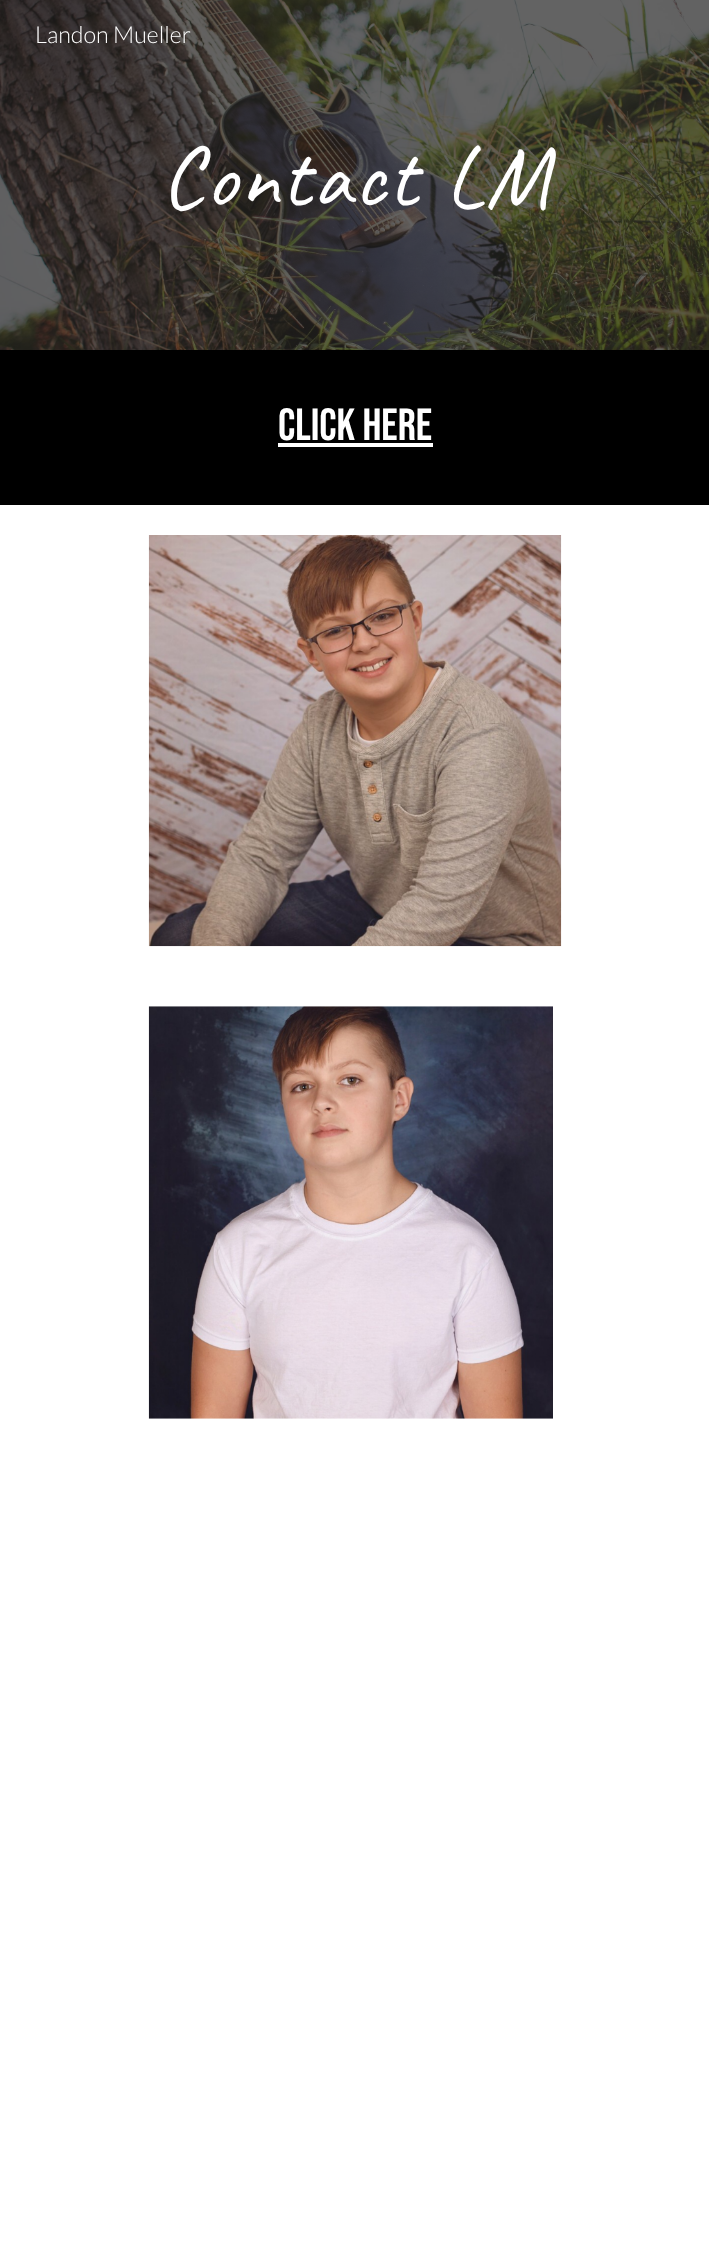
(async () => {
  const canvas = document.querySelector("canvas");
  canvas.width = 709;
  canvas.height = 2244;
  const ctx = canvas.getContext("2d");
  ctx.miterLimit = 4;
  ctx.fontKerning = "normal";
  async function loadImage(src) {
    const img = new Image();
    img.src = src;
    await img.decode();
    return img;
  }

  ctx.fillStyle = "#ffffff";
  ctx.fillRect(0, 0, 709, 2244);
  ctx.drawImage(await loadImage("img/1.png"), 0, 0, 709, 350);
  ctx.fillStyle = "#000000";
  ctx.fillRect(0, 350, 709, 155);
  ctx.fillStyle = "#ffffff";
  ctx.fillRect(278, 443, 155, 4);
  ctx.drawImage(await loadImage("img/2.png"), 148, 535, 414, 412);
  ctx.drawImage(await loadImage("img/3.png"), 148, 1006, 405, 413);
  ctx.font = "300 23.25px Lato";
  ctx.fillText("Landon Mueller", 35, 43);
  ctx.letterSpacing = "2.5px";
  ctx.wordSpacing = "2px";
  ctx.font = "88.5px Caveat";
  ctx.fillText("Contact LM", 161, 206);
  ctx.letterSpacing = "0px";
  ctx.wordSpacing = "0px";
  ctx.font = "45px Bebas Neue";
  ctx.fillText("Click Here", 278, 440);
})();
